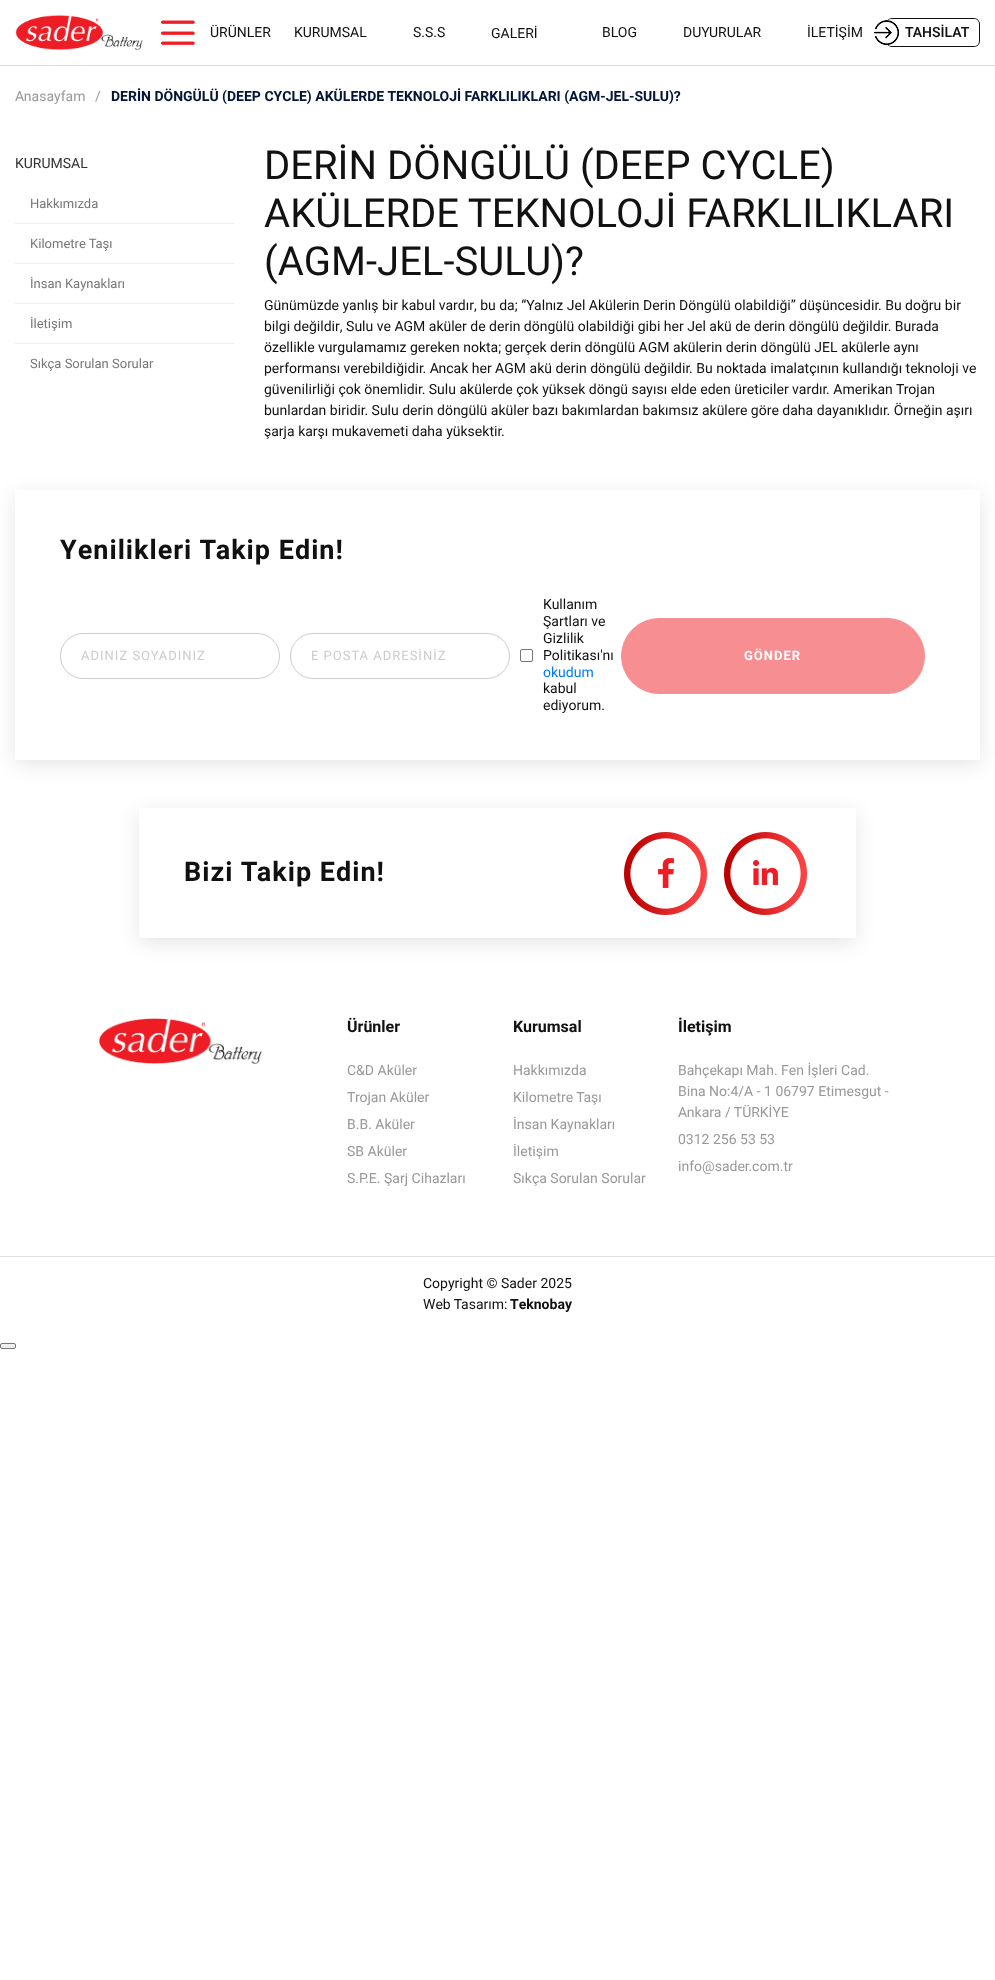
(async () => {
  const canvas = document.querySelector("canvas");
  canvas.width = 995;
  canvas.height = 1980;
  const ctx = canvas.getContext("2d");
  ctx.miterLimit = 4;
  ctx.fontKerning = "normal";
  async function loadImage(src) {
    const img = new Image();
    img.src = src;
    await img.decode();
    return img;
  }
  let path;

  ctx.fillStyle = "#ffffff";
  ctx.fillRect(0, 0, 995, 1980);
  ctx.fillStyle = "#dddddd";
  ctx.fillRect(0, 65, 995, 1);
  ctx.drawImage(await loadImage("img/1.png"), 15, 15, 128, 35);
  ctx.drawImage(await loadImage("img/2.png"), 161, 20, 34, 25);
  ctx.fillStyle = "#111111";
  path = new Path2D("M892 18H974C977 18 980 21 980 24V41C980 44 977 47 974 47H892C889 47 886 44 886 41V24C886 21 889 18 892 18ZM892 19H974C977 19 979 21 979 24V41C979 44 977 46 974 46H892C889 46 886 44 886 41V24C886 21 889 19 892 19Z");
  ctx.fill(path, "evenodd");
  ctx.drawImage(await loadImage("img/3.png"), 874, 20, 25, 25);
  for (const [x, y, w, h, color] of [
    [15, 223, 219, 1, "#eeeeee"],
    [15, 263, 219, 1, "#eeeeee"],
    [15, 303, 219, 1, "#eeeeee"],
    [15, 343, 219, 1, "#eeeeee"],
  ]) {
    ctx.fillStyle = color;
    ctx.fillRect(x, y, w, h);
  }
  ctx.save();
  path = new Path2D("M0 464H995V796H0ZM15 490H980V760H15Z");
  ctx.clip(path, "evenodd");
  ctx.fillStyle = "rgba(0, 0, 0, 0.1)";
  ctx.filter = "blur(10px)";
  ctx.beginPath();
  ctx.rect(15, 495, 965, 270);
  ctx.fill();
  ctx.filter = "none";
  ctx.restore();
  ctx.beginPath();
  ctx.roundRect(60.5, 633.5, 219, 45, 22.5);
  ctx.strokeStyle = "#cccccc";
  ctx.stroke();
  ctx.beginPath();
  ctx.roundRect(290.5, 633.5, 219, 45, 22.5);
  ctx.stroke();
  ctx.beginPath();
  ctx.roundRect(520.5, 649.5, 12, 12, 1.5);
  ctx.strokeStyle = "#767676";
  ctx.stroke();
  ctx.fillStyle = "#f78e92";
  ctx.beginPath();
  ctx.roundRect(621.5, 618.5, 303, 75, 37.5);
  ctx.fill();
  ctx.strokeStyle = "#f78e92";
  ctx.stroke();
  ctx.save();
  path = new Path2D("M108 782H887V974H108ZM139 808H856V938H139Z");
  ctx.clip(path, "evenodd");
  ctx.fillStyle = "rgba(0, 0, 0, 0.1)";
  ctx.filter = "blur(10px)";
  ctx.beginPath();
  ctx.rect(139, 813, 717, 130);
  ctx.fill();
  ctx.filter = "none";
  ctx.restore();
  ctx.drawImage(await loadImage("img/4.png"), 658, 858, 16, 30);
  ctx.drawImage(await loadImage("img/5.png"), 624, 832, 83, 83);
  ctx.drawImage(await loadImage("img/6.png"), 753, 860, 25, 25);
  ctx.drawImage(await loadImage("img/7.png"), 724, 832, 83, 83);
  ctx.drawImage(await loadImage("img/8.png"), 99, 1018, 163, 46);
  ctx.fillStyle = "#dee2e6";
  ctx.fillRect(0, 1256, 995, 1);
  ctx.fillStyle = "#efefef";
  ctx.beginPath();
  ctx.roundRect(0.5, 1343.5, 15, 5, 1.5);
  ctx.fill();
  ctx.strokeStyle = "#767676";
  ctx.stroke();
  ctx.font = "14px Heebo";
  ctx.fillStyle = "#111111";
  for (const [text, x, y] of [
    ["ÜRÜNLER", 210, 37],
    ["KURUMSAL", 294, 37],
    ["S.S.S", 413, 37],
    ["GALERİ", 491, 38],
    ["BLOG", 602, 37],
    ["DUYURULAR", 683, 37],
    ["İLETİŞİM", 807, 37],
  ]) {
    ctx.fillText(text, x, y);
  }
  ctx.font = "600 14px Heebo";
  ctx.fillText("TAHSİLAT", 905, 37);
  ctx.font = "14px Heebo";
  ctx.fillStyle = "#999999";
  ctx.fillText("Anasayfam", 15, 101);
  ctx.fillText("/", 95, 101);
  ctx.font = "bold 14px Heebo";
  ctx.fillStyle = "#031539";
  ctx.fillText("DERİN DÖNGÜLÜ (DEEP CYCLE) AKÜLERDE TEKNOLOJİ FARKLILIKLARI (AGM-JEL-SULU)?", 111, 101);
  ctx.font = "14px Heebo";
  ctx.fillStyle = "#333333";
  ctx.fillText("KURUMSAL", 15, 168);
  ctx.font = "13px Heebo";
  ctx.fillStyle = "#777777";
  for (const [text, x, y] of [
    ["Hakkımızda", 30, 208],
    ["Kilometre Taşı", 30, 248],
    ["İnsan Kaynakları", 30, 288],
    ["İletişim", 30, 328],
    ["Sıkça Sorulan Sorular", 30, 368],
  ]) {
    ctx.fillText(text, x, y);
  }
  ctx.font = "40px Heebo";
  ctx.fillStyle = "#111111";
  for (const [text, x, y] of [
    ["DERİN DÖNGÜLÜ (DEEP CYCLE)", 264, 179],
    ["AKÜLERDE TEKNOLOJİ FARKLILIKLARI", 264, 227],
    ["(AGM-JEL-SULU)?", 264, 275],
  ]) {
    ctx.fillText(text, x, y);
  }
  ctx.font = "14px Heebo";
  for (const [text, x, y] of [
    ["Günümüzde yanlış bir kabul vardır, bu da; “Yalnız Jel Akülerin Derin Döngülü olabildiği” düşüncesidir. Bu doğru bir", 264, 310],
    ["bilgi değildir, Sulu ve AGM aküler de derin döngülü olabildiği gibi her Jel akü de derin döngülü değildir. Burada", 264, 331],
    ["özellikle vurgulamamız gereken nokta; gerçek derin döngülü AGM akülerin derin döngülü JEL akülerle aynı", 264, 352],
    ["performansı verebildiğidir. Ancak her AGM akü derin döngülü değildir. Bu noktada imalatçının kullandığı teknoloji ve", 264, 373],
    ["güvenilirliği çok önemlidir. Sulu akülerde çok yüksek döngü sayısı elde eden üreticiler vardır. Amerikan Trojan", 264, 394],
    ["bunlardan biridir. Sulu derin döngülü aküler bazı bakımlardan bakımsız akülere göre daha dayanıklıdır. Örneğin aşırı", 264, 415],
    ["şarja karşı mukavemeti daha yüksektir.", 264, 436],
  ]) {
    ctx.fillText(text, x, y);
  }
  ctx.letterSpacing = "1px";
  ctx.font = "bold 27px Heebo";
  ctx.fillText("Yenilikleri Takip Edin!", 60, 559);
  ctx.font = "13px Heebo";
  ctx.fillStyle = "#cccccc";
  ctx.fillText("ADINIZ SOYADINIZ", 81, 660);
  ctx.fillText("E POSTA ADRESİNİZ", 311, 660);
  ctx.letterSpacing = "0px";
  ctx.font = "14px Heebo";
  ctx.fillStyle = "#111111";
  for (const [text, x, y] of [
    ["Kullanım", 543, 609],
    ["Şartları ve", 543, 626],
    ["Gizlilik", 543, 643],
    ["Politikası'nı", 543, 660],
  ]) {
    ctx.fillText(text, x, y);
  }
  ctx.fillStyle = "#007bff";
  ctx.fillText("okudum", 543, 677);
  ctx.fillStyle = "#111111";
  ctx.fillText("kabul", 543, 693);
  ctx.fillText("ediyorum.", 543, 710);
  ctx.letterSpacing = "1px";
  ctx.font = "bold 13px Heebo";
  ctx.fillStyle = "#ffffff";
  ctx.fillText("GÖNDER", 744, 660);
  ctx.font = "bold 27px Heebo";
  ctx.fillStyle = "#111111";
  ctx.fillText("Bizi Takip Edin!", 184, 881);
  ctx.letterSpacing = "0px";
  ctx.font = "bold 16px Heebo";
  ctx.fillText("Ürünler", 347, 1032);
  ctx.font = "14px Heebo";
  ctx.fillStyle = "#999999";
  for (const [text, x, y] of [
    ["C&D Aküler", 347, 1075],
    ["Trojan Aküler", 347, 1102],
    ["B.B. Aküler", 347, 1129],
    ["SB Aküler", 347, 1156],
    ["S.P.E. Şarj Cihazları", 347, 1183],
  ]) {
    ctx.fillText(text, x, y);
  }
  ctx.font = "bold 16px Heebo";
  ctx.fillStyle = "#111111";
  ctx.fillText("Kurumsal", 513, 1032);
  ctx.font = "14px Heebo";
  ctx.fillStyle = "#999999";
  for (const [text, x, y] of [
    ["Hakkımızda", 513, 1075],
    ["Kilometre Taşı", 513, 1102],
    ["İnsan Kaynakları", 513, 1129],
    ["İletişim", 513, 1156],
    ["Sıkça Sorulan Sorular", 513, 1183],
  ]) {
    ctx.fillText(text, x, y);
  }
  ctx.font = "bold 16px Heebo";
  ctx.fillStyle = "#111111";
  ctx.fillText("İletişim", 678, 1032);
  ctx.font = "14px Heebo";
  ctx.fillStyle = "#999999";
  for (const [text, x, y] of [
    ["Bahçekapı Mah. Fen İşleri Cad.", 678, 1075],
    ["Bina No:4/A - 1 06797 Etimesgut -", 678, 1096],
    ["Ankara / TÜRKİYE", 678, 1117],
    ["0312 256 53 53", 678, 1144],
    ["info@sader.com.tr", 678, 1171],
  ]) {
    ctx.fillText(text, x, y);
  }
  ctx.fillStyle = "#111111";
  ctx.fillText("Copyright © Sader 2025", 423, 1288);
  ctx.fillText("Web Tasarım:", 423, 1309);
  ctx.font = "bold 14px Heebo";
  ctx.fillText("Teknobay", 510, 1309);
})();
